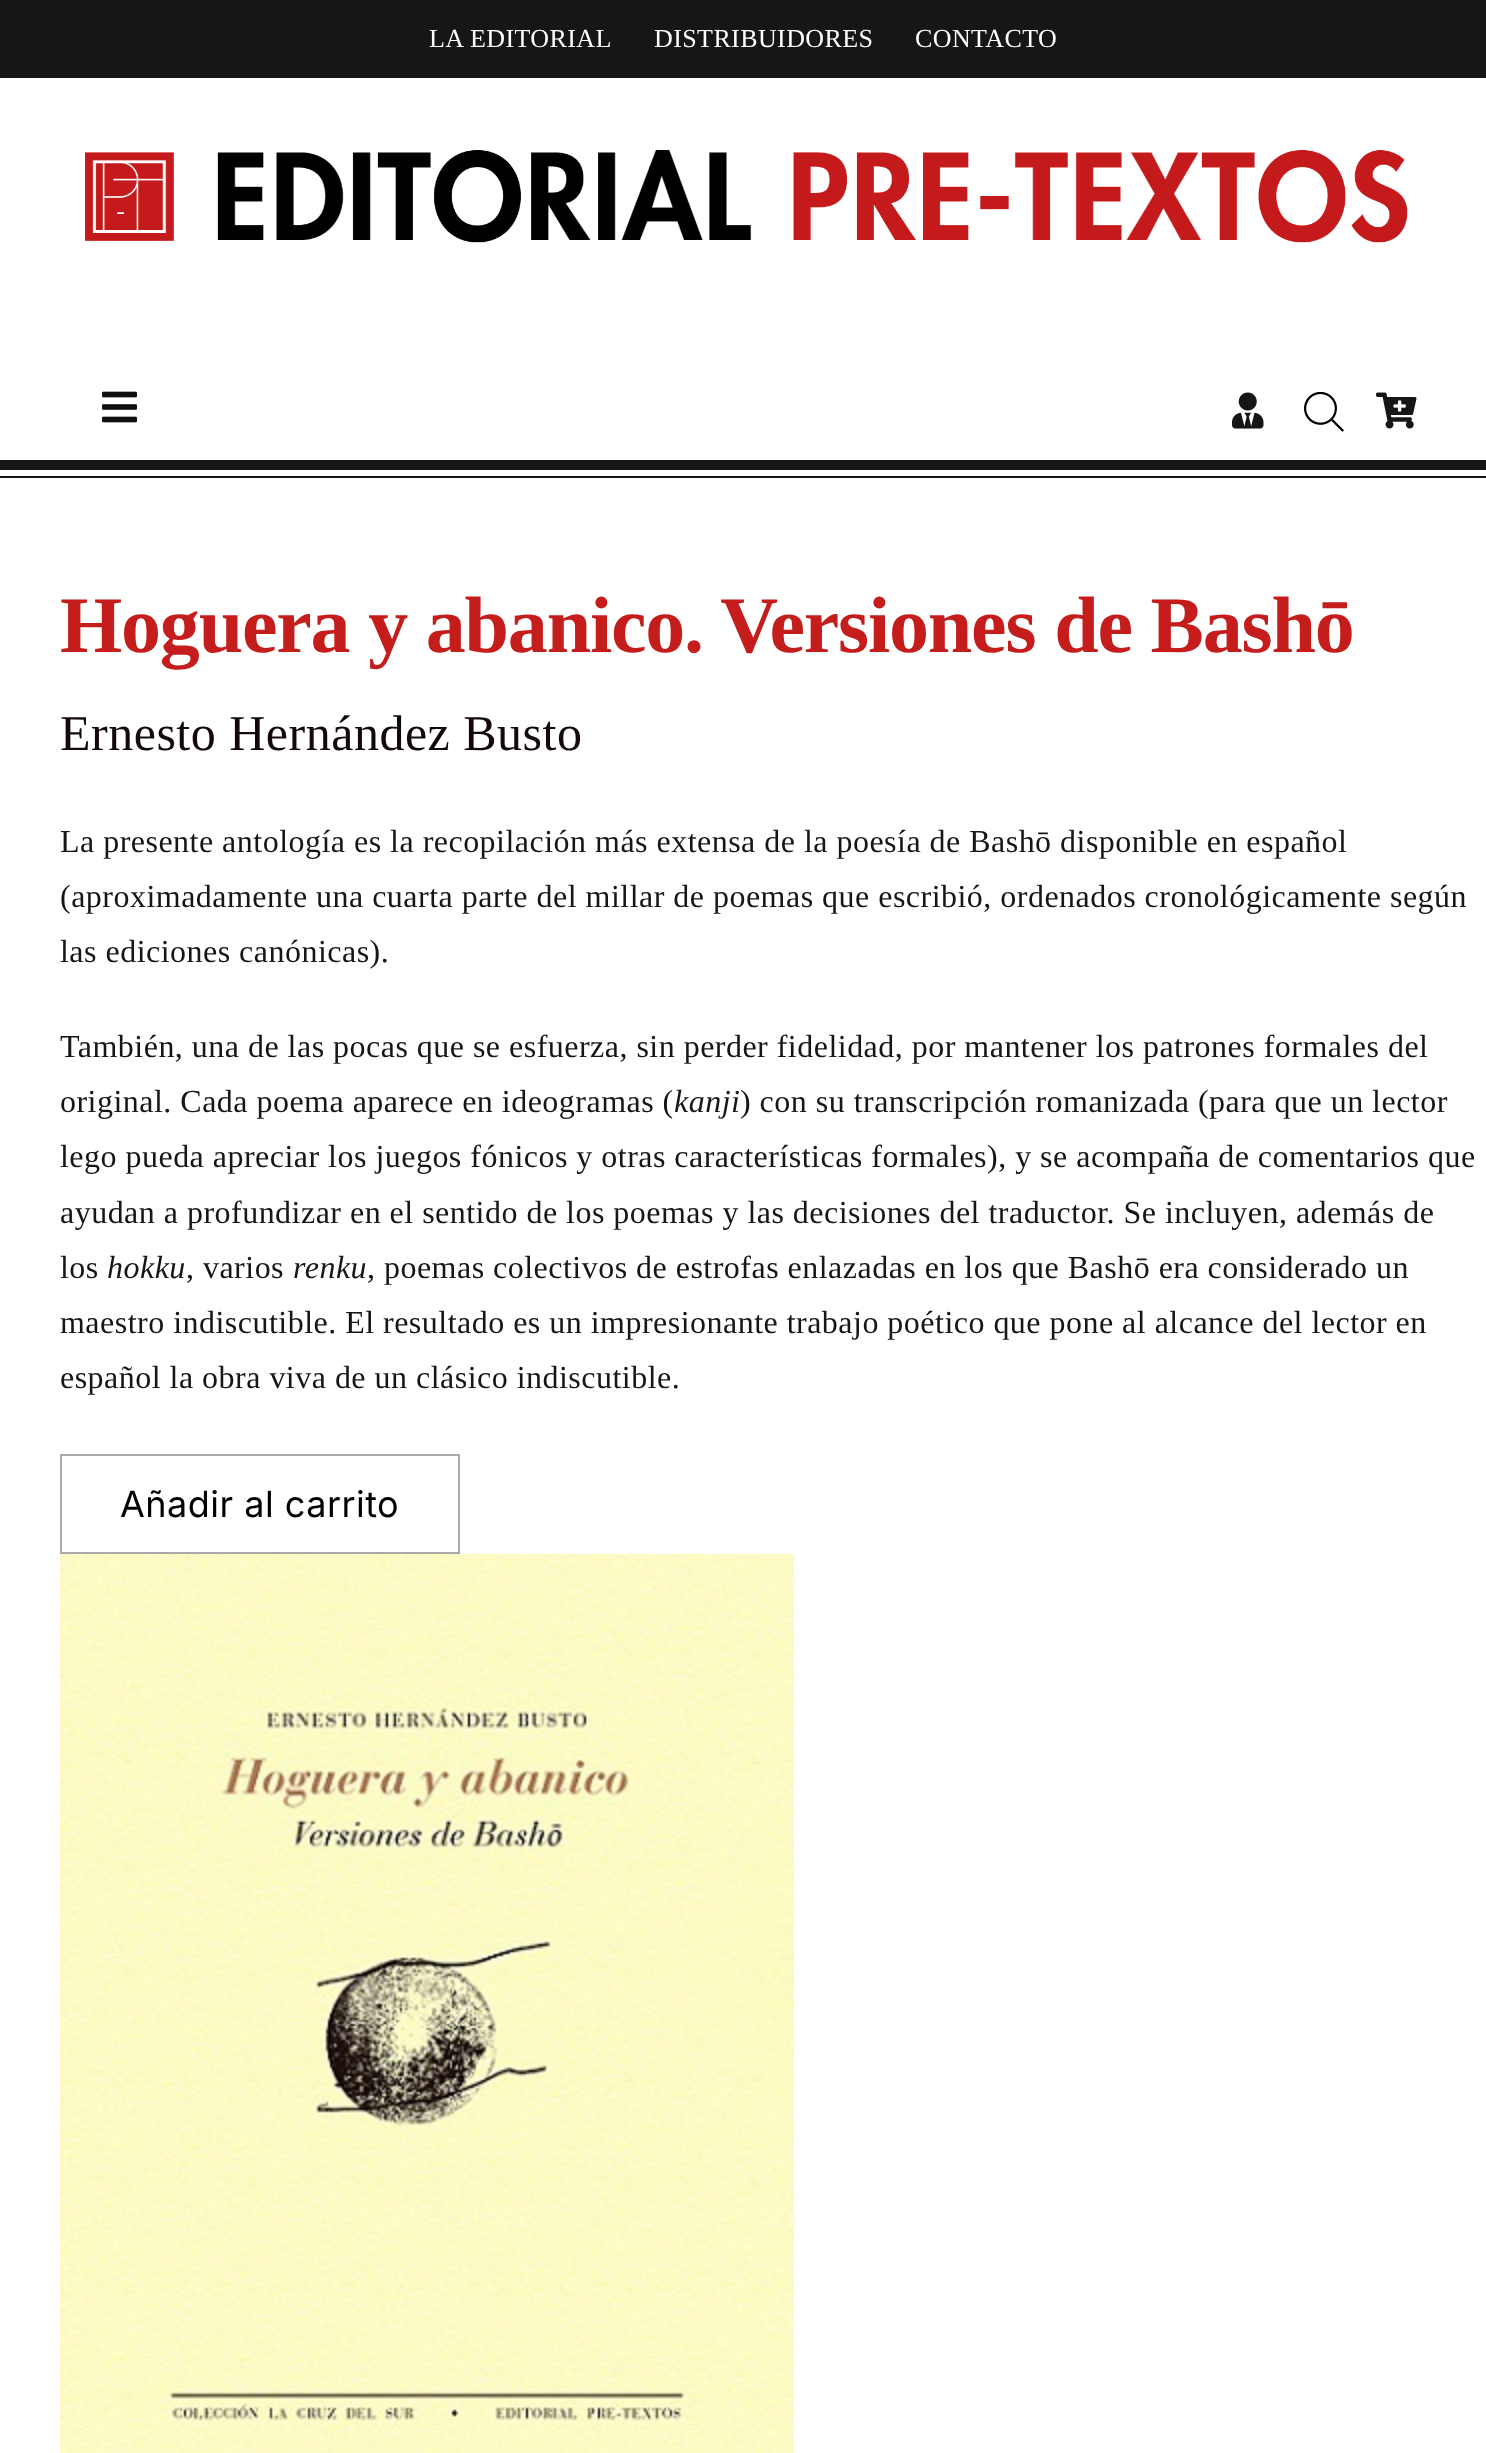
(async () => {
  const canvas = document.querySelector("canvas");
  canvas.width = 1486;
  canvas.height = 2453;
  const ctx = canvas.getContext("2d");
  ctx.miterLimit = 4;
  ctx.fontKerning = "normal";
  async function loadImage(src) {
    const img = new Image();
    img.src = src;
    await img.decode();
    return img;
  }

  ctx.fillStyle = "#ffffff";
  ctx.fillRect(0, 0, 1486, 2453);
  ctx.fillStyle = "#141617";
  ctx.fillRect(0, 0, 1486, 78);
  ctx.drawImage(await loadImage("img/1.png"), 85, 150, 1323, 93);
  ctx.drawImage(await loadImage("img/2.png"), 102, 391, 35, 32);
  ctx.drawImage(await loadImage("img/3.png"), 1232, 392, 32, 37);
  ctx.drawImage(await loadImage("img/4.png"), 1304, 392, 40, 40);
  ctx.drawImage(await loadImage("img/5.png"), 1376, 392, 41, 37);
  ctx.fillRect(0, 460, 1486, 10);
  ctx.fillRect(0, 476, 1486, 2);
  ctx.strokeStyle = "#aaa9a9";
  ctx.lineWidth = 2;
  ctx.strokeRect(61, 1455, 398, 98);
  ctx.drawImage(await loadImage("img/6.png"), 60, 1554, 734, 899);
  ctx.letterSpacing = "0.4px";
  ctx.font = "26px Liberation Serif";
  ctx.fillStyle = "#ffffff";
  for (const [text, x, y] of [
    ["LA EDITORIAL", 429, 47],
    ["DISTRIBUIDORES", 654, 47],
    ["CONTACTO", 915, 47],
  ]) {
    ctx.fillText(text, x, y);
  }
  ctx.letterSpacing = "-1.2px";
  ctx.font = "bold 80px Liberation Serif";
  ctx.fillStyle = "#c51c1c";
  ctx.fillText("Hoguera y abanico. Versiones de Bashō", 60, 652);
  ctx.letterSpacing = "0.5px";
  ctx.font = "50px Liberation Serif";
  ctx.fillStyle = "#130909";
  ctx.fillText("Ernesto Hernández Busto", 60, 750);
  ctx.letterSpacing = "0.48px";
  ctx.font = "32px Liberation Serif";
  ctx.fillStyle = "#141617";
  for (const [text, x, y] of [
    ["La presente antología es la recopilación más extensa de la poesía de Bashō disponible en español", 60, 852],
    ["(aproximadamente una cuarta parte del millar de poemas que escribió, ordenados cronológicamente según", 60, 907],
    ["las ediciones canónicas).", 60, 962],
    ["También, una de las pocas que se esfuerza, sin perder fidelidad, por mantener los patrones formales del", 60, 1057],
    ["original. Cada poema aparece en ideogramas (", 60, 1112],
  ]) {
    ctx.fillText(text, x, y);
  }
  ctx.font = "italic 32px Liberation Serif";
  ctx.fillText("kanji", 674, 1112);
  ctx.font = "32px Liberation Serif";
  for (const [text, x, y] of [
    [") con su transcripción romanizada (para que un lector", 740, 1112],
    ["lego pueda apreciar los juegos fónicos y otras características formales), y se acompaña de comentarios que", 60, 1167],
    ["ayudan a profundizar en el sentido de los poemas y las decisiones del traductor. Se incluyen, además de", 60, 1223],
    ["los", 60, 1278],
  ]) {
    ctx.fillText(text, x, y);
  }
  ctx.font = "italic 32px Liberation Serif";
  ctx.fillText("hokku", 107, 1278);
  ctx.font = "32px Liberation Serif";
  ctx.fillText(", varios", 186, 1278);
  ctx.font = "italic 32px Liberation Serif";
  ctx.fillText("renku", 293, 1278);
  ctx.font = "32px Liberation Serif";
  for (const [text, x, y] of [
    [", poemas colectivos de estrofas enlazadas en los que Bashō era considerado un", 367, 1278],
    ["maestro indiscutible. El resultado es un impresionante trabajo poético que pone al alcance del lector en", 60, 1333],
    ["español la obra viva de un clásico indiscutible.", 60, 1388],
  ]) {
    ctx.fillText(text, x, y);
  }
  ctx.letterSpacing = "0.5px";
  ctx.font = "36px Inter";
  ctx.fillStyle = "#000000";
  ctx.fillText("Añadir al carrito", 120, 1517);
})();
